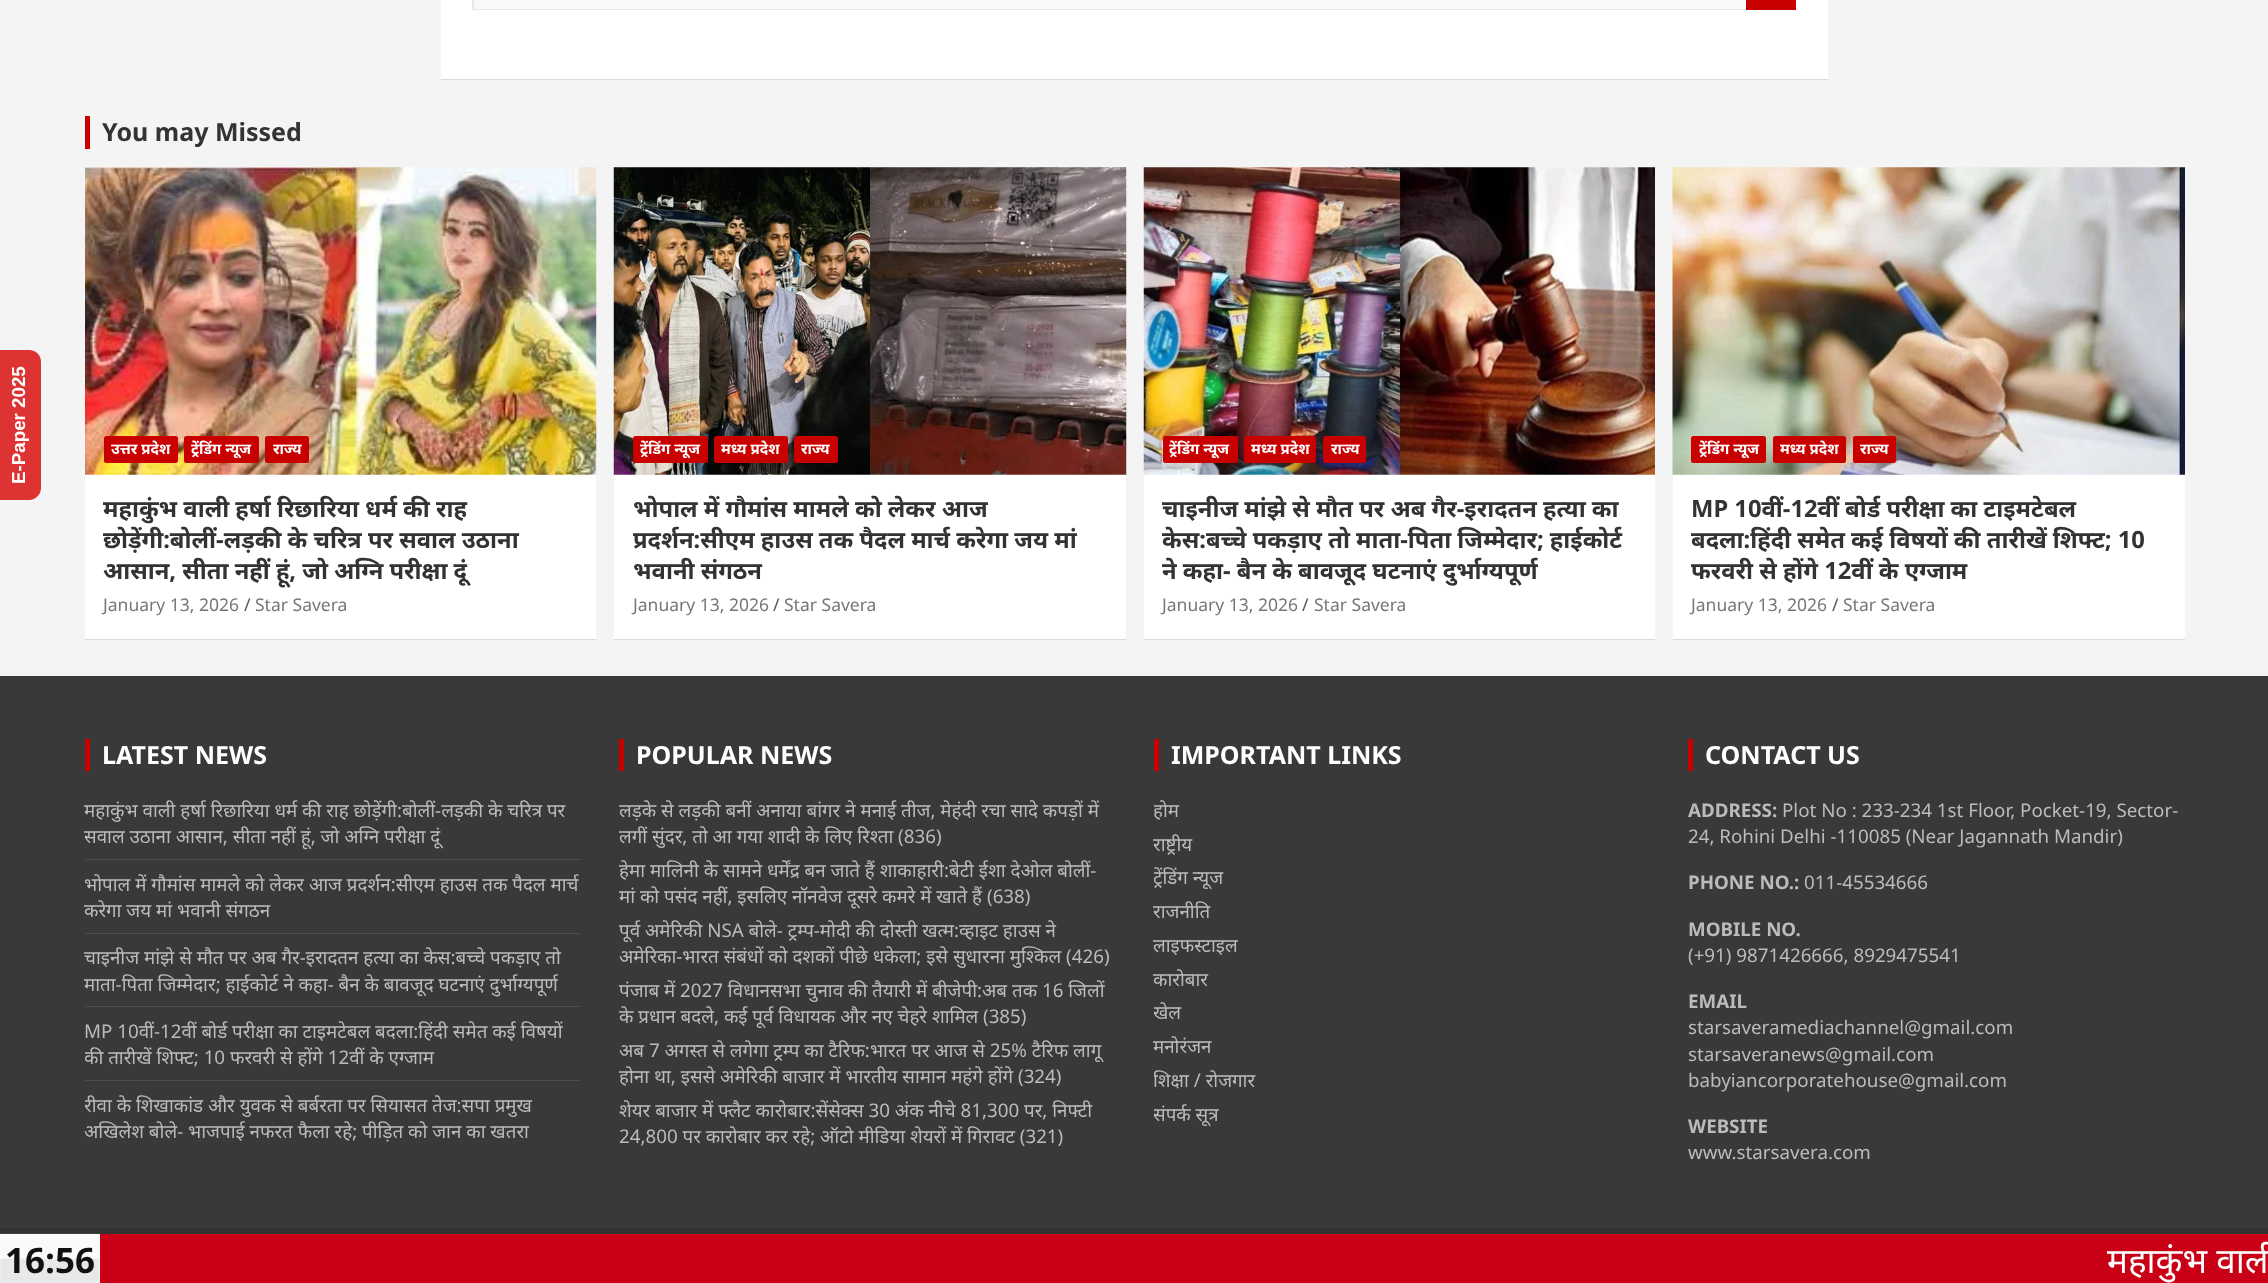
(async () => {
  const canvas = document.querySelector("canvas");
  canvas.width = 2268;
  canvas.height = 1283;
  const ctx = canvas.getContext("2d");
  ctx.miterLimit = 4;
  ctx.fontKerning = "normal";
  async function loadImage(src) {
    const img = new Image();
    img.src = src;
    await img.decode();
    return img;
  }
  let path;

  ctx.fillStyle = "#f4f4f4";
  ctx.fillRect(0, 0, 2268, 1283);
  ctx.fillStyle = "#dd3333";
  path = new Path2D("M-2 500V350H29C36 350 41 355 41 362V488C41 494 36 500 29 500Z");
  ctx.fill(path);
  ctx.fillStyle = "rgba(0, 0, 0, 0.1)";
  ctx.filter = "blur(0.5px)";
  ctx.beginPath();
  ctx.rect(441, -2, 1387, 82);
  ctx.fill();
  ctx.filter = "none";
  ctx.fillStyle = "#ffffff";
  ctx.fillRect(441, 0, 1387, 79);
  ctx.fillStyle = "#f9f9f9";
  ctx.fillRect(474, 0, 1272, 9);
  ctx.fillStyle = "#e8e8e8";
  path = new Path2D("M1746 10H472L474 9H1746Z");
  ctx.fill(path);
  ctx.fillStyle = "rgba(0, 0, 0, 0.09)";
  path = new Path2D("M472 10V-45L474-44V9Z");
  ctx.fill(path);
  ctx.fillStyle = "#c80000";
  ctx.fillRect(1746, 0, 50, 10);
  ctx.fillRect(85, 116, 5, 33);
  ctx.fillStyle = "rgba(0, 0, 0, 0.1)";
  ctx.filter = "blur(0.5px)";
  ctx.beginPath();
  ctx.rect(85, 169, 511, 471);
  ctx.fill();
  ctx.filter = "none";
  ctx.fillStyle = "#ffffff";
  ctx.fillRect(85, 474, 511, 165);
  ctx.drawImage(await loadImage("img/1.png"), 85, 167, 512, 308);
  ctx.fillStyle = "#c80000";
  ctx.beginPath();
  ctx.roundRect(104, 436, 74, 27, 2.5);
  ctx.fill();
  ctx.beginPath();
  ctx.roundRect(184, 436, 75, 27, 2.5);
  ctx.fill();
  ctx.beginPath();
  ctx.roundRect(265, 436, 44, 27, 2.5);
  ctx.fill();
  ctx.fillStyle = "rgba(0, 0, 0, 0.1)";
  ctx.filter = "blur(0.5px)";
  ctx.beginPath();
  ctx.rect(614, 169, 512, 471);
  ctx.fill();
  ctx.filter = "none";
  ctx.fillStyle = "#ffffff";
  ctx.fillRect(614, 474, 512, 165);
  ctx.drawImage(await loadImage("img/2.png"), 613, 167, 514, 308);
  ctx.fillStyle = "#c80000";
  ctx.beginPath();
  ctx.roundRect(633, 436, 75, 27, 2.5);
  ctx.fill();
  ctx.beginPath();
  ctx.roundRect(714, 436, 74, 27, 2.5);
  ctx.fill();
  ctx.beginPath();
  ctx.roundRect(794, 436, 44, 27, 2.5);
  ctx.fill();
  ctx.fillStyle = "rgba(0, 0, 0, 0.1)";
  ctx.filter = "blur(0.5px)";
  ctx.beginPath();
  ctx.rect(1144, 169, 511, 471);
  ctx.fill();
  ctx.filter = "none";
  ctx.fillStyle = "#ffffff";
  ctx.fillRect(1144, 474, 511, 165);
  ctx.drawImage(await loadImage("img/3.png"), 1143, 167, 512, 308);
  ctx.fillStyle = "#c80000";
  ctx.beginPath();
  ctx.roundRect(1163, 436, 75, 27, 2.5);
  ctx.fill();
  ctx.beginPath();
  ctx.roundRect(1244, 436, 72, 27, 2.5);
  ctx.fill();
  ctx.beginPath();
  ctx.roundRect(1323, 436, 43, 27, 2.5);
  ctx.fill();
  ctx.fillStyle = "rgba(0, 0, 0, 0.1)";
  ctx.filter = "blur(0.5px)";
  ctx.beginPath();
  ctx.rect(1673, 169, 512, 471);
  ctx.fill();
  ctx.filter = "none";
  ctx.fillStyle = "#ffffff";
  ctx.fillRect(1673, 474, 512, 165);
  ctx.drawImage(await loadImage("img/4.png"), 1672, 167, 513, 308);
  ctx.fillStyle = "#c80000";
  ctx.beginPath();
  ctx.roundRect(1691, 436, 75, 27, 2.5);
  ctx.fill();
  ctx.beginPath();
  ctx.roundRect(1773, 436, 73, 27, 2.5);
  ctx.fill();
  ctx.beginPath();
  ctx.roundRect(1853, 436, 43, 27, 2.5);
  ctx.fill();
  for (const [x, y, w, h, color] of [
    [0, 676, 2268, 552, "#393939"],
    [85, 739, 5, 32, "#c80000"],
    [85, 859, 496, 1, "#4d4d4d"],
    [85, 933, 496, 1, "#4d4d4d"],
    [85, 1006, 496, 1, "#4d4d4d"],
    [85, 1080, 496, 1, "#4d4d4d"],
    [619, 739, 5, 32, "#c80000"],
    [1154, 739, 5, 32, "#c80000"],
    [1688, 739, 5, 32, "#c80000"],
    [0, 1228, 2268, 6, "#333333"],
  ]) {
    ctx.fillStyle = color;
    ctx.fillRect(x, y, w, h);
  }
  ctx.drawImage(await loadImage("img/5.png"), 0, 1233, 100, 50);
  ctx.fillStyle = "#c90016";
  ctx.fillRect(100, 1234, 2168, 49);
  ctx.font = "bold 18.75px Liberation Sans";
  ctx.fillStyle = "#ffffff";
  ctx.save();
  ctx.translate(25, 484);
  ctx.rotate(-90 * Math.PI / 180);
  ctx.fillText("E-Paper 2025", 0, 0);
  ctx.restore();
  ctx.font = "bold 25px Noto Sans";
  ctx.fillStyle = "#333333";
  ctx.fillText("You may Missed", 102, 141);
  ctx.font = "bold 15px Noto Sans";
  ctx.fillStyle = "#ffffff";
  for (const [text, x, y] of [
    ["उत्तर प्रदेश", 111, 454],
    ["ट्रेंडिंग न्यूज", 191, 454],
    ["राज्य", 273, 454],
  ]) {
    ctx.fillText(text, x, y);
  }
  ctx.font = "bold 23.75px Noto Sans";
  ctx.fillStyle = "#333333";
  for (const [text, x, y] of [
    ["महाकुंभ वाली हर्षा रिछारिया धर्म की राह", 103, 517],
    ["छोड़ेंगी:बोलीं-लड़की के चरित्र पर सवाल उठाना", 103, 548],
    ["आसान, सीता नहीं हूं, जो अग्नि परीक्षा दूं", 103, 579],
  ]) {
    ctx.fillText(text, x, y);
  }
  ctx.font = "17.5px Noto Sans";
  ctx.fillStyle = "#777777";
  ctx.fillText("January 13, 2026", 103, 611);
  ctx.fillStyle = "#555555";
  ctx.fillText("/", 244, 611);
  ctx.fillStyle = "#777777";
  ctx.fillText("Star Savera", 255, 611);
  ctx.font = "bold 15px Noto Sans";
  ctx.fillStyle = "#ffffff";
  for (const [text, x, y] of [
    ["ट्रेंडिंग न्यूज", 640, 454],
    ["मध्य प्रदेश", 721, 454],
    ["राज्य", 801, 454],
  ]) {
    ctx.fillText(text, x, y);
  }
  ctx.font = "bold 23.75px Noto Sans";
  ctx.fillStyle = "#333333";
  for (const [text, x, y] of [
    ["भोपाल में गौमांस मामले को लेकर आज", 633, 517],
    ["प्रदर्शन:सीएम हाउस तक पैदल मार्च करेगा जय मां", 633, 548],
    ["भवानी संगठन", 633, 579],
  ]) {
    ctx.fillText(text, x, y);
  }
  ctx.font = "17.5px Noto Sans";
  ctx.fillStyle = "#777777";
  ctx.fillText("January 13, 2026", 633, 611);
  ctx.fillStyle = "#555555";
  ctx.fillText("/", 773, 611);
  ctx.fillStyle = "#777777";
  ctx.fillText("Star Savera", 784, 611);
  ctx.font = "bold 15px Noto Sans";
  ctx.fillStyle = "#ffffff";
  for (const [text, x, y] of [
    ["ट्रेंडिंग न्यूज", 1169, 454],
    ["मध्य प्रदेश", 1251, 454],
    ["राज्य", 1331, 454],
  ]) {
    ctx.fillText(text, x, y);
  }
  ctx.font = "bold 23.75px Noto Sans";
  ctx.fillStyle = "#333333";
  for (const [text, x, y] of [
    ["चाइनीज मांझे से मौत पर अब गैर-इरादतन हत्या का", 1162, 517],
    ["केस:बच्चे पकड़ाए तो माता-पिता जिम्मेदार; हाईकोर्ट", 1162, 548],
    ["ने कहा- बैन के बावजूद घटनाएं दुर्भाग्यपूर्ण", 1162, 579],
  ]) {
    ctx.fillText(text, x, y);
  }
  ctx.font = "17.5px Noto Sans";
  ctx.fillStyle = "#777777";
  ctx.fillText("January 13, 2026", 1162, 611);
  ctx.fillStyle = "#555555";
  ctx.fillText("/", 1302, 611);
  ctx.fillStyle = "#777777";
  ctx.fillText("Star Savera", 1314, 611);
  ctx.font = "bold 15px Noto Sans";
  ctx.fillStyle = "#ffffff";
  for (const [text, x, y] of [
    ["ट्रेंडिंग न्यूज", 1699, 454],
    ["मध्य प्रदेश", 1780, 454],
    ["राज्य", 1860, 454],
  ]) {
    ctx.fillText(text, x, y);
  }
  ctx.font = "bold 23.75px Noto Sans";
  ctx.fillStyle = "#333333";
  for (const [text, x, y] of [
    ["MP 10वीं-12वीं बोर्ड परीक्षा का टाइमटेबल", 1691, 517],
    ["बदला:हिंदी समेत कई विषयों की तारीखें शिफ्ट; 10", 1691, 548],
    ["फरवरी से होंगे 12वीं के एग्जाम", 1691, 579],
  ]) {
    ctx.fillText(text, x, y);
  }
  ctx.font = "17.5px Noto Sans";
  ctx.fillStyle = "#777777";
  ctx.fillText("January 13, 2026", 1691, 611);
  ctx.fillStyle = "#555555";
  ctx.fillText("/", 1832, 611);
  ctx.fillStyle = "#777777";
  ctx.fillText("Star Savera", 1843, 611);
  ctx.font = "bold 25px Noto Sans";
  ctx.fillStyle = "#ffffff";
  ctx.fillText("LATEST NEWS", 102, 764);
  ctx.font = "18.75px Noto Sans";
  ctx.fillStyle = "#bbbbbb";
  ctx.fillText("महाकुंभ वाली हर्षा रिछारिया धर्म की राह छोड़ेंगी:बोलीं-लड़की के चरित्र पर", 84, 817);
  ctx.fillText("सवाल उठाना आसान, सीता नहीं हूं, जो अग्नि परीक्षा दूं", 84, 843);
  ctx.save();
  ctx.beginPath();
  ctx.rect(85, 796, 496, 348);
  ctx.clip();
  ctx.fillText("भोपाल में गौमांस मामले को लेकर आज प्रदर्शन:सीएम हाउस तक पैदल मार्च", 84, 891);
  ctx.restore();
  for (const [text, x, y] of [
    ["करेगा जय मां भवानी संगठन", 84, 917],
    ["चाइनीज मांझे से मौत पर अब गैर-इरादतन हत्या का केस:बच्चे पकड़ाए तो", 84, 964],
    ["माता-पिता जिम्मेदार; हाईकोर्ट ने कहा- बैन के बावजूद घटनाएं दुर्भाग्यपूर्ण", 84, 991],
    ["MP 10वीं-12वीं बोर्ड परीक्षा का टाइमटेबल बदला:हिंदी समेत कई विषयों", 84, 1038],
  ]) {
    ctx.fillText(text, x, y);
  }
  ctx.save();
  ctx.beginPath();
  ctx.rect(85, 796, 496, 348);
  ctx.clip();
  ctx.fillText("की तारीखें शिफ्ट; 10 फरवरी से होंगे 12वीं के एग्जाम", 84, 1064);
  ctx.fillText("रीवा के शिखाकांड और युवक से बर्बरता पर सियासत तेज:सपा प्रमुख", 84, 1112);
  ctx.restore();
  ctx.fillText("अखिलेश बोले- भाजपाई नफरत फैला रहे; पीड़ित को जान का खतरा", 84, 1138);
  ctx.font = "bold 25px Noto Sans";
  ctx.fillStyle = "#ffffff";
  ctx.fillText("POPULAR NEWS", 636, 764);
  ctx.font = "18.75px Noto Sans";
  ctx.fillStyle = "#bbbbbb";
  ctx.fillText("लड़के से लड़की बनीं अनाया बांगर ने मनाई तीज, मेहंदी रचा सादे कपड़ों में", 619, 817);
  ctx.fillText("लगीं सुंदर, तो आ गया शादी के लिए रिश्ता (836)", 619, 843);
  ctx.save();
  ctx.beginPath();
  ctx.rect(619, 796, 497, 353);
  ctx.clip();
  ctx.fillText("हेमा मालिनी के सामने धर्मेंद्र बन जाते हैं शाकाहारी:बेटी ईशा देओल बोलीं-", 619, 877);
  ctx.fillText("मां को पसंद नहीं, इसलिए नॉनवेज दूसरे कमरे में खाते हैं", 619, 903);
  ctx.restore();
  ctx.fillText("(638)", 987, 903);
  ctx.save();
  ctx.beginPath();
  ctx.rect(619, 796, 497, 353);
  ctx.clip();
  ctx.fillText("पूर्व अमेरिकी NSA बोले- ट्रम्प-मोदी की दोस्ती खत्म:व्हाइट हाउस ने", 619, 937);
  ctx.restore();
  ctx.fillText("अमेरिका-भारत संबंधों को दशकों पीछे धकेला; इसे सुधारना मुश्किल (426)", 619, 963);
  ctx.save();
  ctx.beginPath();
  ctx.rect(619, 796, 497, 353);
  ctx.clip();
  ctx.fillText("पंजाब में 2027 विधानसभा चुनाव की तैयारी में बीजेपी:अब तक 16 जिलों", 619, 997);
  ctx.fillText("के प्रधान बदले, कई पूर्व विधायक और नए चेहरे शामिल", 619, 1023);
  ctx.restore();
  ctx.fillText("(385)", 983, 1023);
  ctx.fillText("अब 7 अगस्त से लगेगा ट्रम्प का टैरिफ:भारत पर आज से 25% टैरिफ लागू", 619, 1057);
  ctx.save();
  ctx.beginPath();
  ctx.rect(619, 796, 497, 353);
  ctx.clip();
  ctx.fillText("होना था, इससे अमेरिकी बाजार में भारतीय सामान महंगे होंगे", 619, 1083);
  ctx.restore();
  ctx.fillText("(324)", 1018, 1083);
  ctx.save();
  ctx.beginPath();
  ctx.rect(619, 796, 497, 353);
  ctx.clip();
  ctx.fillText("शेयर बाजार में फ्लैट कारोबार:सेंसेक्स 30 अंक नीचे 81,300 पर, निफ्टी", 619, 1117);
  ctx.restore();
  ctx.fillText("24,800 पर कारोबार कर रहे; ऑटो मीडिया शेयरों में गिरावट (321)", 619, 1143);
  ctx.font = "bold 25px Noto Sans";
  ctx.fillStyle = "#ffffff";
  ctx.fillText("IMPORTANT LINKS", 1171, 764);
  ctx.save();
  ctx.beginPath();
  ctx.rect(1154, 796, 496, 330);
  ctx.clip();
  ctx.font = "18.75px Noto Sans";
  ctx.fillStyle = "#bbbbbb";
  ctx.fillText("होम", 1153, 817);
  ctx.restore();
  ctx.font = "18.75px Noto Sans";
  ctx.fillStyle = "#bbbbbb";
  ctx.fillText("राष्ट्रीय", 1153, 851);
  ctx.save();
  ctx.beginPath();
  ctx.rect(1154, 796, 496, 330);
  ctx.clip();
  ctx.fillText("ट्रेंडिंग न्यूज", 1153, 884);
  ctx.restore();
  for (const [text, x, y] of [
    ["राजनीति", 1153, 918],
    ["लाइफस्टाइल", 1153, 952],
    ["कारोबार", 1153, 986],
  ]) {
    ctx.fillText(text, x, y);
  }
  ctx.save();
  ctx.beginPath();
  ctx.rect(1154, 796, 496, 330);
  ctx.clip();
  ctx.fillText("खेल", 1153, 1019);
  ctx.restore();
  ctx.fillText("मनोरंजन", 1153, 1053);
  ctx.save();
  ctx.beginPath();
  ctx.rect(1154, 796, 496, 330);
  ctx.clip();
  ctx.fillText("शिक्षा / रोजगार", 1153, 1087);
  ctx.fillText("संपर्क सूत्र", 1153, 1121);
  ctx.restore();
  ctx.font = "bold 25px Noto Sans";
  ctx.fillStyle = "#ffffff";
  ctx.fillText("CONTACT US", 1705, 764);
  ctx.font = "bold 18.75px Noto Sans";
  ctx.fillStyle = "#bbbbbb";
  ctx.fillText("ADDRESS:", 1688, 817);
  ctx.font = "18.75px Noto Sans";
  ctx.fillText("Plot No : 233-234 1st Floor, Pocket-19, Sector-", 1782, 817);
  ctx.fillText("24, Rohini Delhi -110085 (Near Jagannath Mandir)", 1688, 843);
  ctx.font = "bold 18.75px Noto Sans";
  ctx.fillText("PHONE NO.:", 1688, 889);
  ctx.font = "18.75px Noto Sans";
  ctx.fillText("011-45534666", 1804, 889);
  ctx.font = "bold 18.75px Noto Sans";
  ctx.fillText("MOBILE NO.", 1688, 936);
  ctx.font = "18.75px Noto Sans";
  ctx.fillText("(+91) 9871426666, 8929475541", 1688, 962);
  ctx.font = "bold 18.75px Noto Sans";
  ctx.fillText("EMAIL", 1688, 1008);
  ctx.font = "18.75px Noto Sans";
  for (const [text, x, y] of [
    ["starsaveramediachannel@gmail.com", 1688, 1034],
    ["starsaveranews@gmail.com", 1688, 1061],
    ["babyiancorporatehouse@gmail.com", 1688, 1087],
  ]) {
    ctx.fillText(text, x, y);
  }
  ctx.font = "bold 18.75px Noto Sans";
  ctx.fillText("WEBSITE", 1688, 1133);
  ctx.font = "18.75px Noto Sans";
  ctx.fillText("www.starsavera.com", 1688, 1159);
  ctx.font = "bold 35px Open Sans";
  ctx.fillStyle = "#111111";
  ctx.fillText("16:56", 5, 1273);
  ctx.font = "35px 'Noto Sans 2'";
  ctx.fillStyle = "#ffffff";
  ctx.fillText("महाकुंभ वाली", 2107, 1273);
})();
